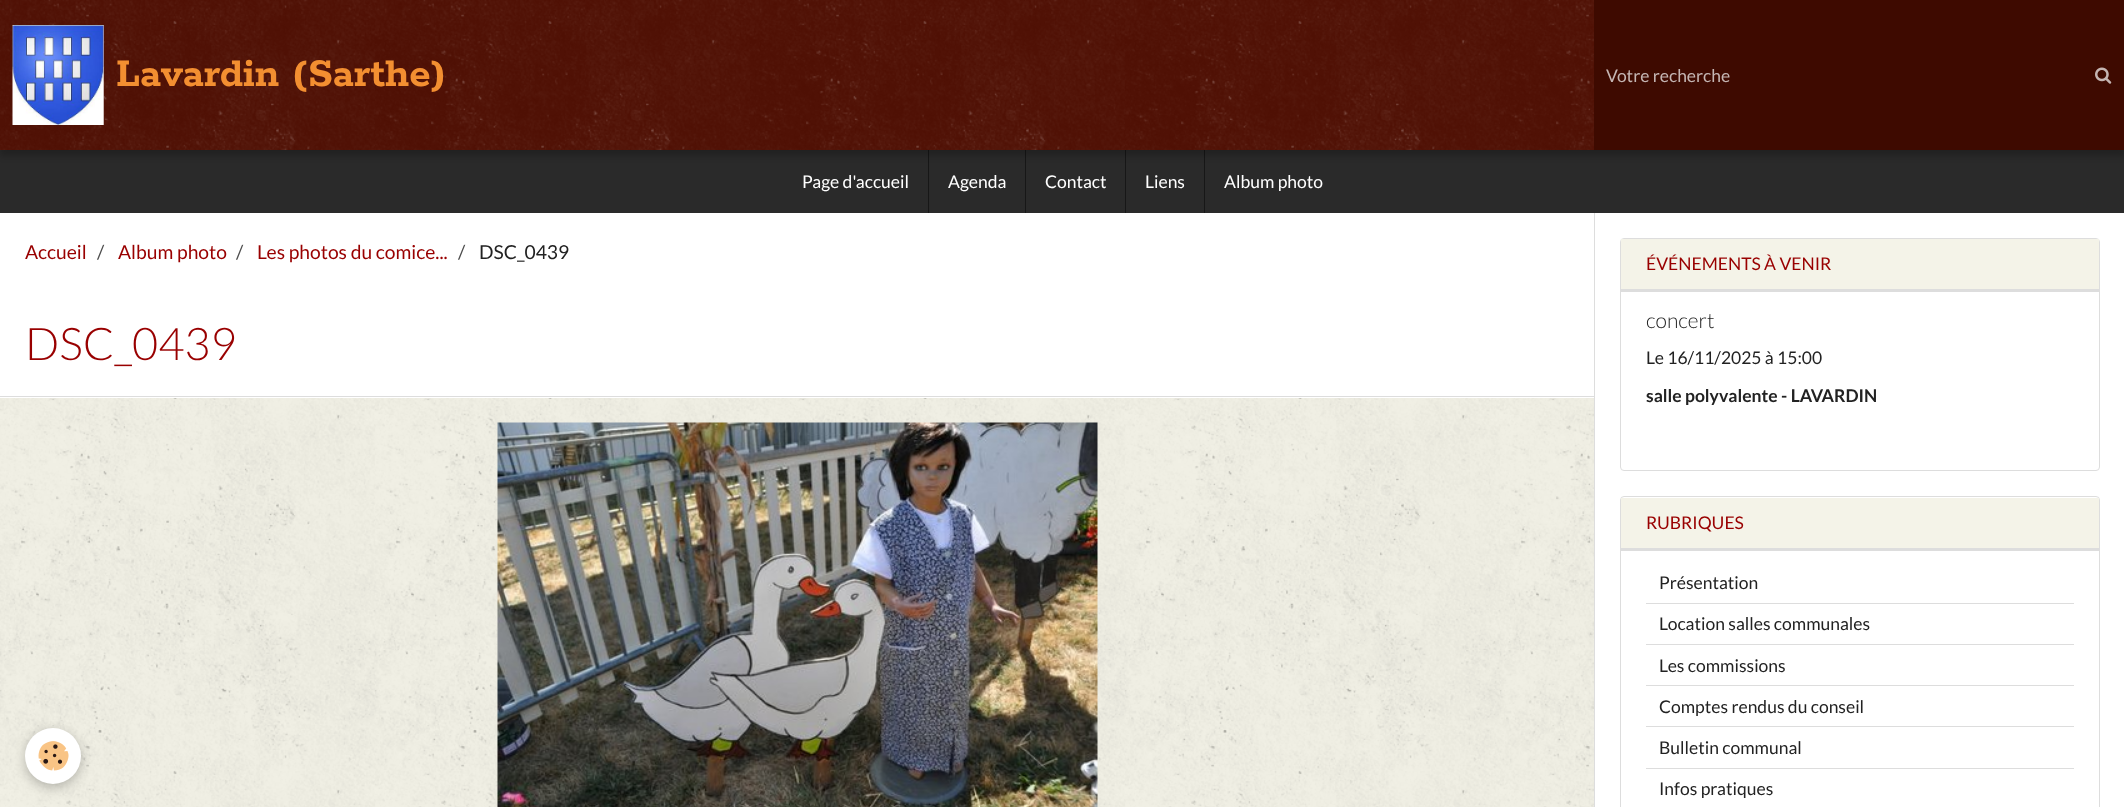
(async () => {
  const canvas = document.querySelector("canvas");
  canvas.width = 2124;
  canvas.height = 807;
  const ctx = canvas.getContext("2d");
  ctx.miterLimit = 4;
  ctx.fontKerning = "normal";
  async function loadImage(src) {
    const img = new Image();
    img.src = src;
    await img.decode();
    return img;
  }

  ctx.fillStyle = "#f4f3e8";
  ctx.fillRect(0, 0, 2124, 807);
  ctx.drawImage(await loadImage("img/1.png"), 0, 398, 1594, 409);
  for (const [x, y, w, h, color] of [
    [0, 150, 2124, 63, "#2a2a2a"],
    [928, 150, 1, 63, "#171717"],
    [1025, 150, 1, 63, "#171717"],
    [1125, 150, 1, 63, "#171717"],
    [1204, 150, 1, 63, "#171717"],
  ]) {
    ctx.fillStyle = color;
    ctx.fillRect(x, y, w, h);
  }
  ctx.fillStyle = "rgba(0, 0, 0, 0.2)";
  ctx.filter = "blur(3px)";
  ctx.beginPath();
  ctx.rect(0, 6, 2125, 150);
  ctx.fill();
  ctx.filter = "none";
  ctx.fillStyle = "#4d0d00";
  ctx.fillRect(0, 0, 1594, 150);
  ctx.drawImage(await loadImage("img/2.png"), 0, 0, 1594, 150);
  ctx.drawImage(await loadImage("img/3.png"), 12, 25, 92, 100);
  ctx.fillStyle = "#3e0a00";
  ctx.fillRect(1594, 0, 530, 150);
  ctx.drawImage(await loadImage("img/4.png"), 2095, 67, 17, 17);
  ctx.fillStyle = "#ffffff";
  ctx.fillRect(0, 213, 1594, 185);
  ctx.fillStyle = "#dddddd";
  ctx.fillRect(0, 396, 1594, 1);
  ctx.drawImage(await loadImage("img/5.png"), 497, 422, 601, 385);
  ctx.fillStyle = "#ffffff";
  ctx.fillRect(1595, 213, 529, 594);
  ctx.fillStyle = "#dddddd";
  ctx.fillRect(1594, 213, 1, 594);
  ctx.beginPath();
  ctx.roundRect(1620.5, 238.5, 479, 232, 3.5);
  ctx.strokeStyle = "#dddddd";
  ctx.stroke();
  ctx.fillStyle = "#f4f3e8";
  ctx.fillRect(1621, 239, 478, 50);
  ctx.fillStyle = "#dddddd";
  ctx.fillRect(1621, 289, 478, 3);
  ctx.beginPath();
  ctx.roundRect(1620.5, 496.5, 479, 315, 3.5);
  ctx.stroke();
  for (const [x, y, w, h, color] of [
    [1621, 498, 478, 50, "#f4f3e8"],
    [1621, 548, 478, 3, "#dddddd"],
    [1646, 603, 428, 1, "#dddddd"],
    [1646, 644, 428, 1, "#dddddd"],
    [1646, 685, 428, 1, "#dddddd"],
    [1646, 726, 428, 1, "#dddddd"],
    [1646, 768, 428, 1, "#dddddd"],
  ]) {
    ctx.fillStyle = color;
    ctx.fillRect(x, y, w, h);
  }
  ctx.fillStyle = "rgba(0, 0, 0, 0.24)";
  ctx.filter = "blur(6px)";
  ctx.beginPath();
  ctx.roundRect(25, 731, 56, 57, 28);
  ctx.fill();
  ctx.filter = "none";
  ctx.fillStyle = "#ffffff";
  ctx.beginPath();
  ctx.arc(53, 756, 28, 0, Math.PI * 2);
  ctx.fill();
  ctx.drawImage(await loadImage("img/6.png"), 38, 741, 31, 30);
  ctx.font = "bold 43.75px Rokkitt";
  ctx.fillStyle = "#f38f31";
  ctx.fillText("Lavardin (Sarthe)", 116, 86);
  ctx.font = "17.5px Lato";
  ctx.fillStyle = "#c5b6b3";
  ctx.fillText("Votre recherche", 1606, 82);
  ctx.fillStyle = "#ffffff";
  for (const [text, x, y] of [
    ["Page d'accueil", 802, 188],
    ["Agenda", 948, 188],
    ["Contact", 1045, 188],
    ["Liens", 1145, 188],
    ["Album photo", 1224, 188],
  ]) {
    ctx.fillText(text, x, y);
  }
  ctx.font = "19.25px Lato";
  ctx.fillStyle = "#990000";
  ctx.fillText("Accueil", 25, 259);
  ctx.fillStyle = "#4e4e4e";
  ctx.fillText("/", 97, 259);
  ctx.fillStyle = "#990000";
  ctx.fillText("Album photo", 118, 259);
  ctx.fillStyle = "#4e4e4e";
  ctx.fillText("/", 236, 259);
  ctx.fillStyle = "#990000";
  ctx.fillText("Les photos du comice...", 257, 259);
  ctx.fillStyle = "#4e4e4e";
  ctx.fillText("/", 458, 259);
  ctx.fillStyle = "#222222";
  ctx.fillText("DSC_0439", 479, 259);
  ctx.font = "300 45px Lato";
  ctx.fillStyle = "#990000";
  ctx.fillText("DSC_0439", 25, 360);
  ctx.font = "17.5px Lato";
  ctx.fillText("ÉVÉNEMENTS À VENIR", 1646, 270);
  ctx.font = "300 21px Lato";
  ctx.fillStyle = "#222222";
  ctx.fillText("concert", 1646, 328);
  ctx.font = "17.5px Lato";
  ctx.fillText("Le 16/11/2025 à 15:00", 1646, 364);
  ctx.font = "bold 17.5px Lato";
  ctx.fillText("salle polyvalente - LAVARDIN", 1646, 402);
  ctx.font = "17.5px Lato";
  ctx.fillStyle = "#990000";
  ctx.fillText("RUBRIQUES", 1646, 529);
  ctx.fillStyle = "#222222";
  for (const [text, x, y] of [
    ["Présentation", 1659, 589],
    ["Location salles communales", 1659, 630],
    ["Les commissions", 1659, 672],
    ["Comptes rendus du conseil", 1659, 713],
    ["Bulletin communal", 1659, 754],
    ["Infos pratiques", 1659, 795],
  ]) {
    ctx.fillText(text, x, y);
  }
})();
